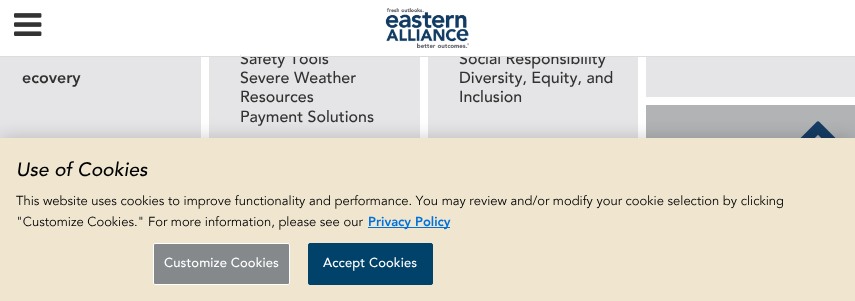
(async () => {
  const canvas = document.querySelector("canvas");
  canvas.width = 855;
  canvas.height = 301;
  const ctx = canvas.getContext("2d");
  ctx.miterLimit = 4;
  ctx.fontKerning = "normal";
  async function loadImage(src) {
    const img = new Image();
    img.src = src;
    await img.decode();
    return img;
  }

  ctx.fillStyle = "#ffffff";
  ctx.fillRect(0, 0, 855, 301);
  ctx.drawImage(await loadImage("img/1.png"), 14, 13, 28, 23);
  ctx.drawImage(await loadImage("img/2.png"), 385, 8, 84, 40);
  for (const [x, y, w, h, color] of [
    [0, 57, 201, 81, "#e5e5e7"],
    [209, 57, 211, 81, "#e5e5e7"],
    [428, 57, 210, 81, "#e5e5e7"],
    [646, 57, 209, 40, "#e5e5e7"],
    [646, 105, 209, 33, "#b1b3b5"],
  ]) {
    ctx.fillStyle = color;
    ctx.fillRect(x, y, w, h);
  }
  ctx.drawImage(await loadImage("img/3.png"), 800, 121, 36, 17);
  ctx.fillStyle = "rgba(0, 0, 0, 0.2)";
  ctx.filter = "blur(9px)";
  ctx.beginPath();
  ctx.rect(0, 138, 855, 163);
  ctx.fill();
  ctx.filter = "none";
  ctx.fillStyle = "#f0e6d0";
  ctx.fillRect(0, 138, 855, 163);
  ctx.fillStyle = "#0072da";
  ctx.fillRect(368, 227, 82, 1);
  ctx.fillStyle = "#85898c";
  ctx.beginPath();
  ctx.roundRect(153.5, 243.5, 136, 41, 1.5);
  ctx.fill();
  ctx.strokeStyle = "#ffffff";
  ctx.stroke();
  ctx.fillStyle = "#01426a";
  ctx.beginPath();
  ctx.roundRect(308.5, 243.5, 124, 41, 1.5);
  ctx.fill();
  ctx.strokeStyle = "#01426a";
  ctx.stroke();
  ctx.font = "16px Avenir";
  ctx.fillStyle = "#323232";
  ctx.fillText("ecovery", 22, 83);
  ctx.font = "16px 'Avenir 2'";
  for (const [text, x, y] of [
    ["Safety Tools", 240, 64],
    ["Severe Weather", 240, 83],
    ["Resources", 240, 102],
    ["Payment Solutions", 240, 122],
    ["Social Responsibility", 459, 64],
  ]) {
    ctx.fillText(text, x, y);
  }
  ctx.fillStyle = "#dddddd";
  ctx.fillRect(0, 56, 855, 1);
  ctx.fillStyle = "#ffffff";
  ctx.fillRect(241, 51, 354, 5);
  ctx.fillStyle = "#323232";
  ctx.fillText("Diversity, Equity, and", 459, 83);
  ctx.fillText("Inclusion", 459, 102);
  ctx.font = "italic 19.25px Avenir";
  ctx.fillStyle = "#000000";
  ctx.fillText("Use of Cookies", 16, 176);
  ctx.font = "13px 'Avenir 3'";
  ctx.fillText("This website uses cookies to improve functionality and performance. You may review and/or modify your cookie selection by clicking", 16, 205);
  ctx.fillText("\"Customize Cookies.\" For more information, please see our", 16, 226);
  ctx.font = "13px Avenir";
  ctx.fillStyle = "#0072da";
  ctx.fillText("Privacy Policy", 368, 226);
  ctx.letterSpacing = "0.1px";
  ctx.font = "13px 'Avenir 2'";
  ctx.fillStyle = "#ffffff";
  ctx.fillText("Customize Cookies", 164, 267);
  ctx.fillText("Accept Cookies", 323, 267);
})();
